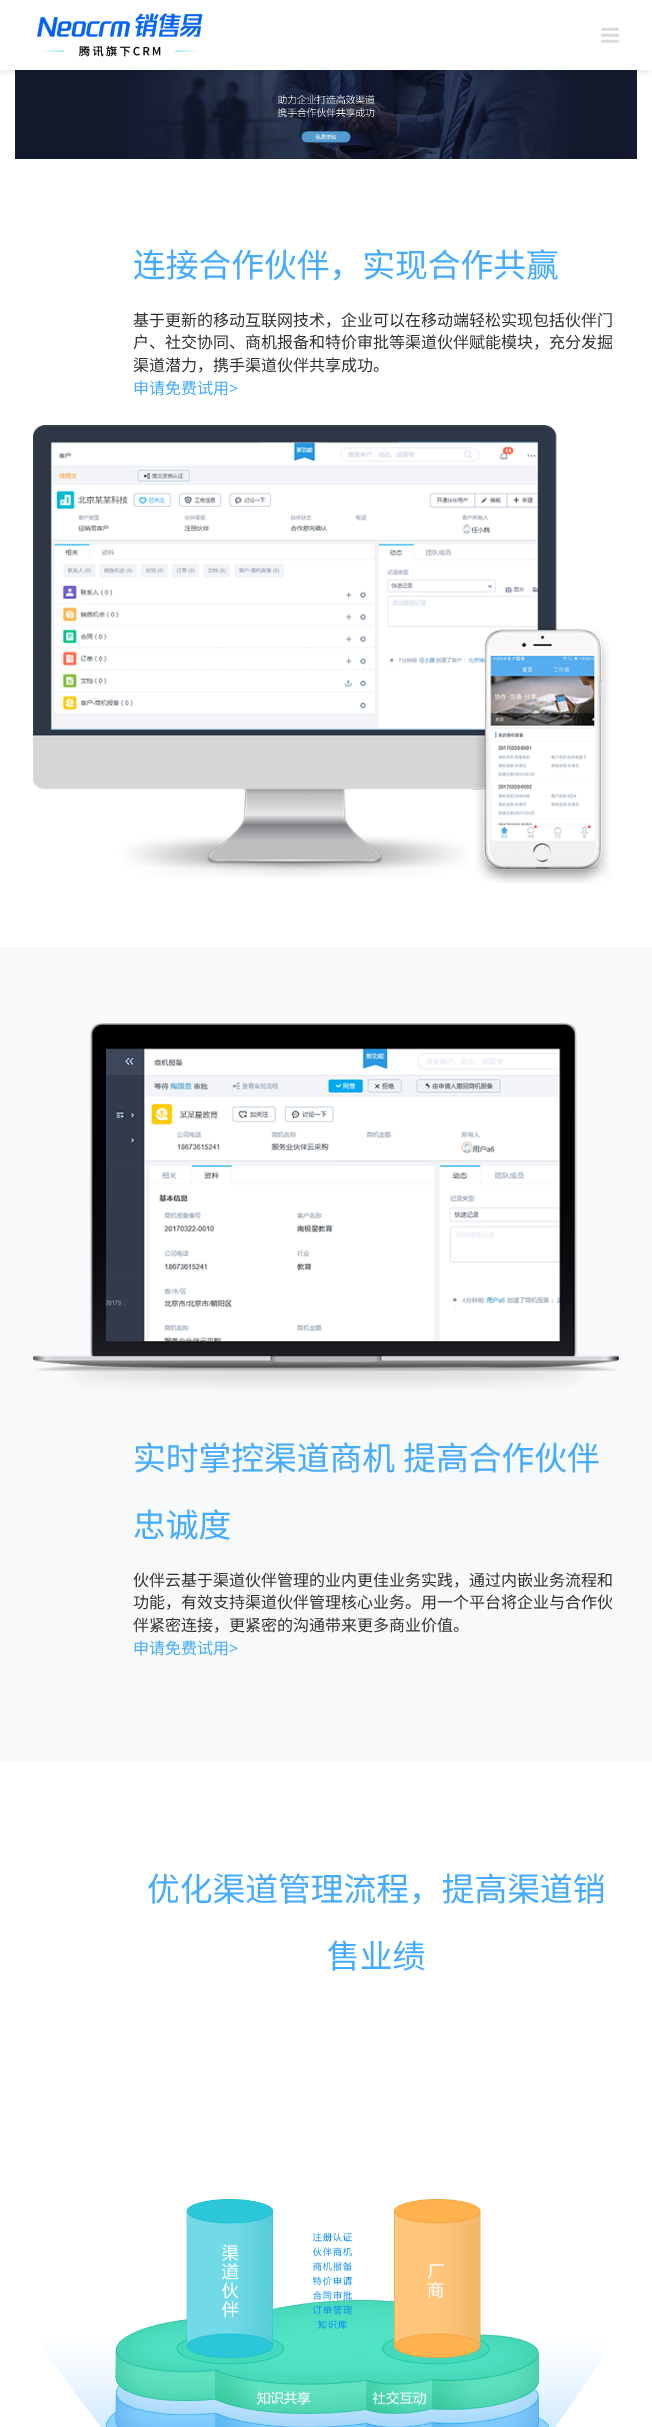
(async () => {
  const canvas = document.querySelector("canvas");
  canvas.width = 652;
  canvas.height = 2427;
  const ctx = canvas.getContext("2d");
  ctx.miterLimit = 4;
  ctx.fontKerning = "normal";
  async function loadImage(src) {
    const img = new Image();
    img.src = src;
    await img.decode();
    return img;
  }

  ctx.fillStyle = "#ffffff";
  ctx.fillRect(0, 0, 652, 2427);
  ctx.drawImage(await loadImage("img/3.png"), 15, 70, 622, 89);
  ctx.save();
  ctx.beginPath();
  ctx.rect(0, 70, 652, 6);
  ctx.clip();
  ctx.fillStyle = "rgba(0, 0, 0, 0.15)";
  ctx.filter = "blur(5px)";
  ctx.beginPath();
  ctx.rect(0, 0, 652, 70);
  ctx.fill();
  ctx.filter = "none";
  ctx.restore();
  ctx.drawImage(await loadImage("img/1.png"), 37, 13, 166, 44);
  ctx.drawImage(await loadImage("img/2.png"), 601, 27, 18, 16);
  ctx.drawImage(await loadImage("img/4.png"), 33, 425, 577, 459);
  ctx.fillStyle = "#f8f9fb";
  ctx.fillRect(0, 946, 652, 816);
  ctx.drawImage(await loadImage("img/5.png"), 33, 1023, 586, 368);
  ctx.drawImage(await loadImage("img/6.png"), 45, 2199, 563, 228);
  ctx.font = "32.75px Noto Sans CJK SC";
  ctx.fillStyle = "#45abff";
  ctx.fillText("连接合作伙伴，实现合作共赢", 133, 277);
  ctx.font = "16px Noto Sans CJK SC";
  ctx.fillStyle = "#323232";
  for (const [text, x, y] of [
    ["基于更新的移动互联网技术，企业可以在移动端轻松实现包括伙伴门", 133, 326],
    ["户、社交协同、商机报备和特价审批等渠道伙伴赋能模块，充分发掘", 133, 348],
    ["渠道潜力，携手渠道伙伴共享成功。", 133, 371],
  ]) {
    ctx.fillText(text, x, y);
  }
  ctx.fillStyle = "#45abff";
  ctx.fillText("申请免费试用", 133, 394);
  ctx.font = "16px Noto Sans";
  ctx.fillText(">", 229, 394);
  ctx.wordSpacing = "1px";
  ctx.font = "32.75px Noto Sans CJK SC";
  ctx.fillText("实时掌控渠道商机 提高合作伙伴", 133, 1470);
  ctx.wordSpacing = "0px";
  ctx.fillText("忠诚度", 133, 1537);
  ctx.font = "16px Noto Sans CJK SC";
  ctx.fillStyle = "#323232";
  for (const [text, x, y] of [
    ["伙伴云基于渠道伙伴管理的业内更佳业务实践，通过内嵌业务流程和", 133, 1586],
    ["功能，有效支持渠道伙伴管理核心业务。用一个平台将企业与合作伙", 133, 1608],
    ["伴紧密连接，更紧密的沟通带来更多商业价值。", 133, 1631],
  ]) {
    ctx.fillText(text, x, y);
  }
  ctx.fillStyle = "#45abff";
  ctx.fillText("申请免费试用", 133, 1654);
  ctx.font = "16px Noto Sans";
  ctx.fillText(">", 229, 1654);
  ctx.font = "32.75px Noto Sans CJK SC";
  ctx.fillText("优化渠道管理流程，提高渠道销", 147, 1901);
  ctx.fillText("售业绩", 327, 1968);
})();
